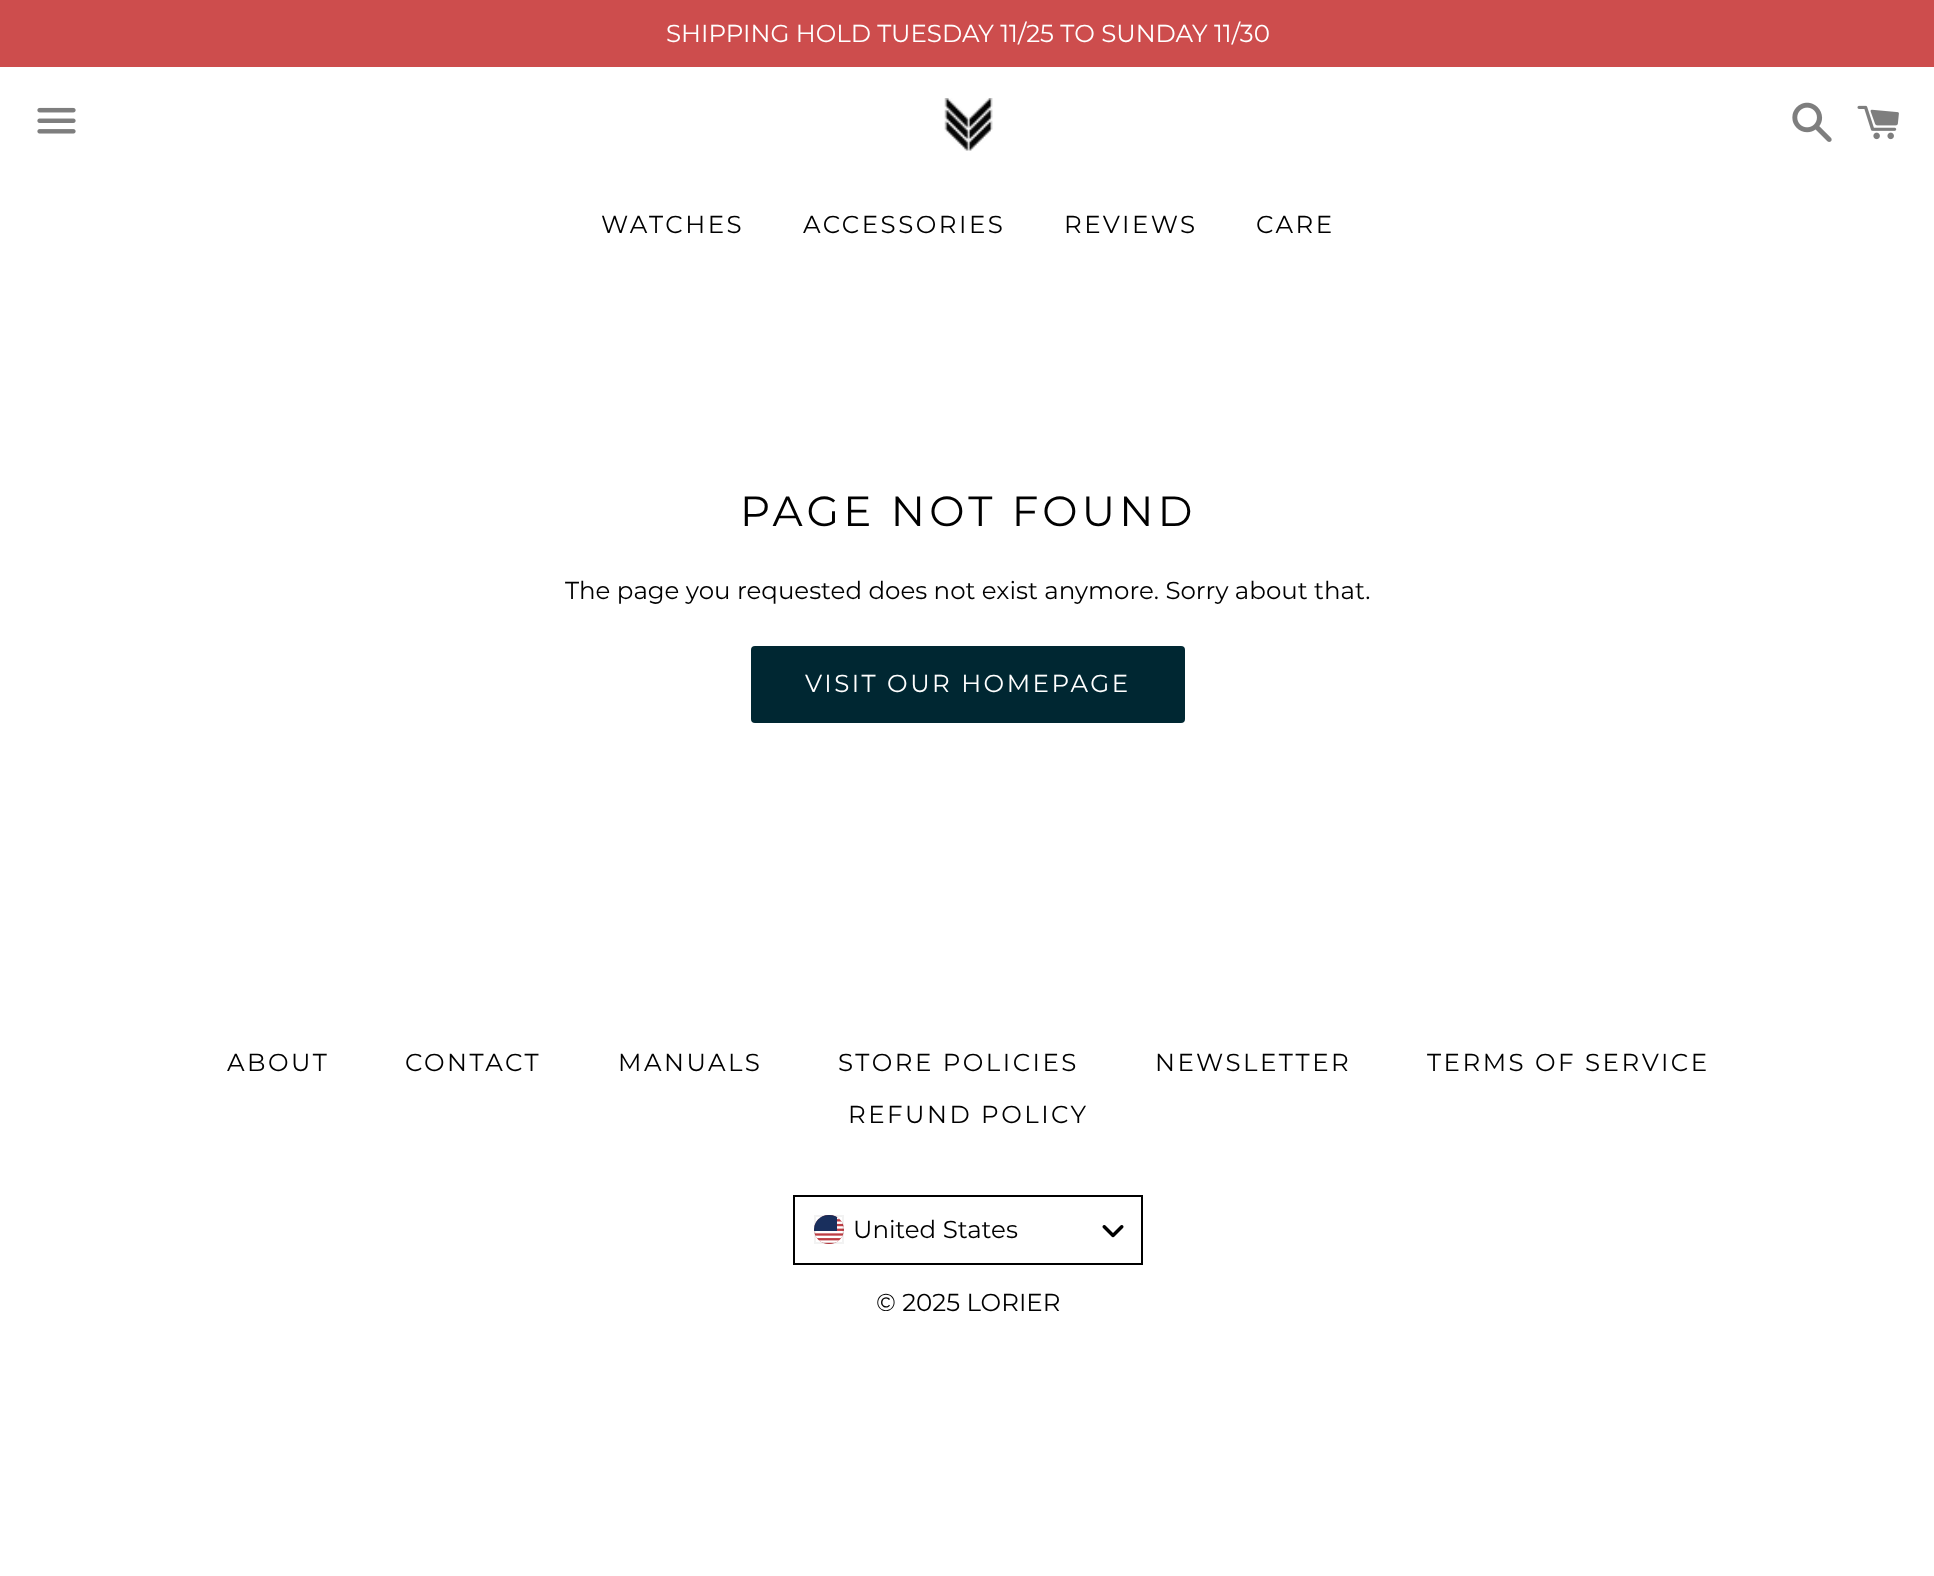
(async () => {
  const canvas = document.querySelector("canvas");
  canvas.width = 1934;
  canvas.height = 1576;
  const ctx = canvas.getContext("2d");
  ctx.miterLimit = 4;
  ctx.fontKerning = "normal";
  async function loadImage(src) {
    const img = new Image();
    img.src = src;
    await img.decode();
    return img;
  }

  ctx.fillStyle = "#ffffff";
  ctx.fillRect(0, 0, 1934, 1576);
  ctx.fillStyle = "#cd4d4d";
  ctx.fillRect(0, 0, 1934, 67);
  ctx.drawImage(await loadImage("img/1.png"), 37, 107, 39, 27);
  ctx.drawImage(await loadImage("img/2.png"), 944, 98, 49, 53);
  ctx.drawImage(await loadImage("img/3.png"), 1792, 102, 40, 40);
  ctx.drawImage(await loadImage("img/4.png"), 1857, 105, 42, 35);
  ctx.fillStyle = "#002732";
  ctx.beginPath();
  ctx.roundRect(751, 646, 434, 77, 4);
  ctx.fill();
  ctx.drawImage(await loadImage("img/5.png"), 1102, 1225, 22, 13);
  ctx.strokeStyle = "#000000";
  ctx.lineWidth = 2;
  ctx.strokeRect(794, 1196, 348, 68);
  ctx.drawImage(await loadImage("img/6.png"), 814, 1215, 30, 29);
  ctx.strokeStyle = "rgba(0, 0, 0, 0.05)";
  ctx.strokeRect(815, 1216, 28, 27);
  ctx.font = "100 24.5px Montserrat";
  ctx.fillStyle = "#ffffff";
  ctx.fillText("SHIPPING HOLD TUESDAY 11/25 TO SUNDAY 11/30", 666, 42);
  ctx.letterSpacing = "2.5px";
  ctx.fillStyle = "#000000";
  for (const [text, x, y] of [
    ["WATCHES", 601, 233],
    ["ACCESSORIES", 803, 233],
    ["REVIEWS", 1064, 233],
    ["CARE", 1256, 233],
  ]) {
    ctx.fillText(text, x, y);
  }
  ctx.letterSpacing = "4.25px";
  ctx.font = "100 42px Montserrat";
  ctx.fillText("PAGE NOT FOUND", 740, 526);
  ctx.letterSpacing = "0px";
  ctx.font = "100 24.5px Montserrat";
  ctx.fillText("The page you requested does not exist anymore. Sorry about that.", 565, 599);
  ctx.letterSpacing = "2.5px";
  ctx.fillStyle = "#ffffff";
  ctx.fillText("VISIT OUR HOMEPAGE", 805, 692);
  ctx.fillStyle = "#000000";
  for (const [text, x, y] of [
    ["ABOUT", 227, 1071],
    ["CONTACT", 405, 1071],
    ["MANUALS", 618, 1071],
    ["STORE POLICIES", 838, 1071],
    ["NEWSLETTER", 1155, 1071],
    ["TERMS OF SERVICE", 1427, 1071],
    ["REFUND POLICY", 848, 1123],
  ]) {
    ctx.fillText(text, x, y);
  }
  ctx.letterSpacing = "0px";
  ctx.fillText("United States", 853, 1238);
  ctx.fillText("© 2025 LORIER", 876, 1311);
})();
